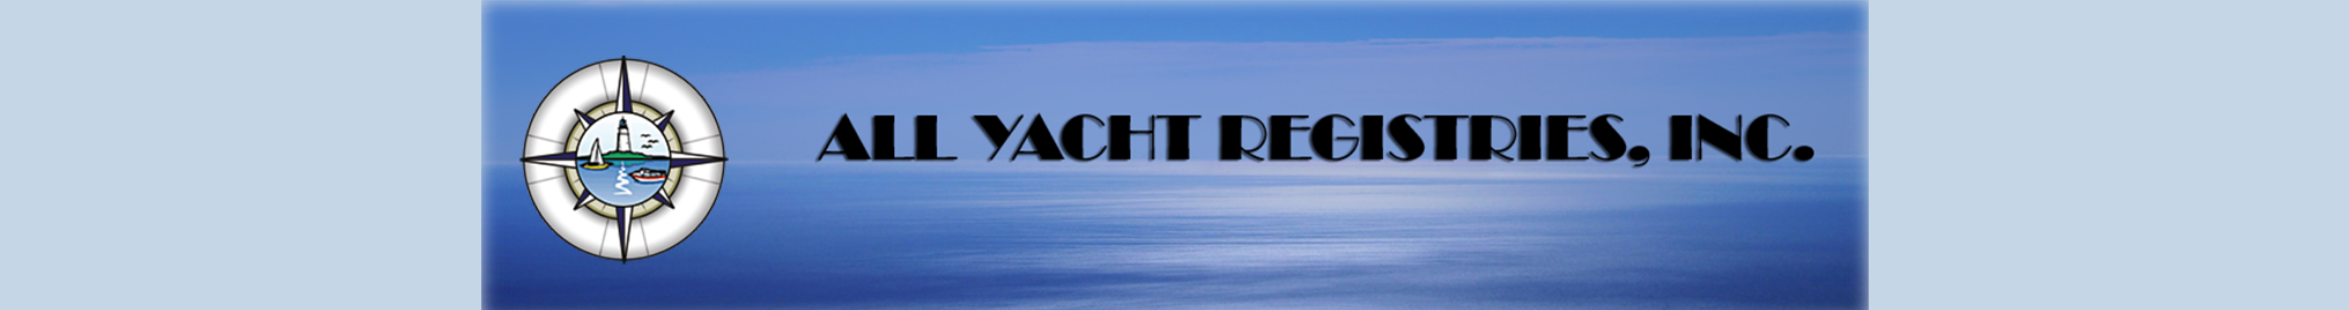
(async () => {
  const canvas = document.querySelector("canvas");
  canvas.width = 2349;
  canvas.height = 310;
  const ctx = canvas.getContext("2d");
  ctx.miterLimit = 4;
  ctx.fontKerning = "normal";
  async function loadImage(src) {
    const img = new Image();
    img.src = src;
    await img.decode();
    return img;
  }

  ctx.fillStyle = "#c5d6e6";
  ctx.fillRect(0, 0, 2349, 310);
  ctx.drawImage(await loadImage("img/1.png"), 481, 0, 1388, 310);
})();
